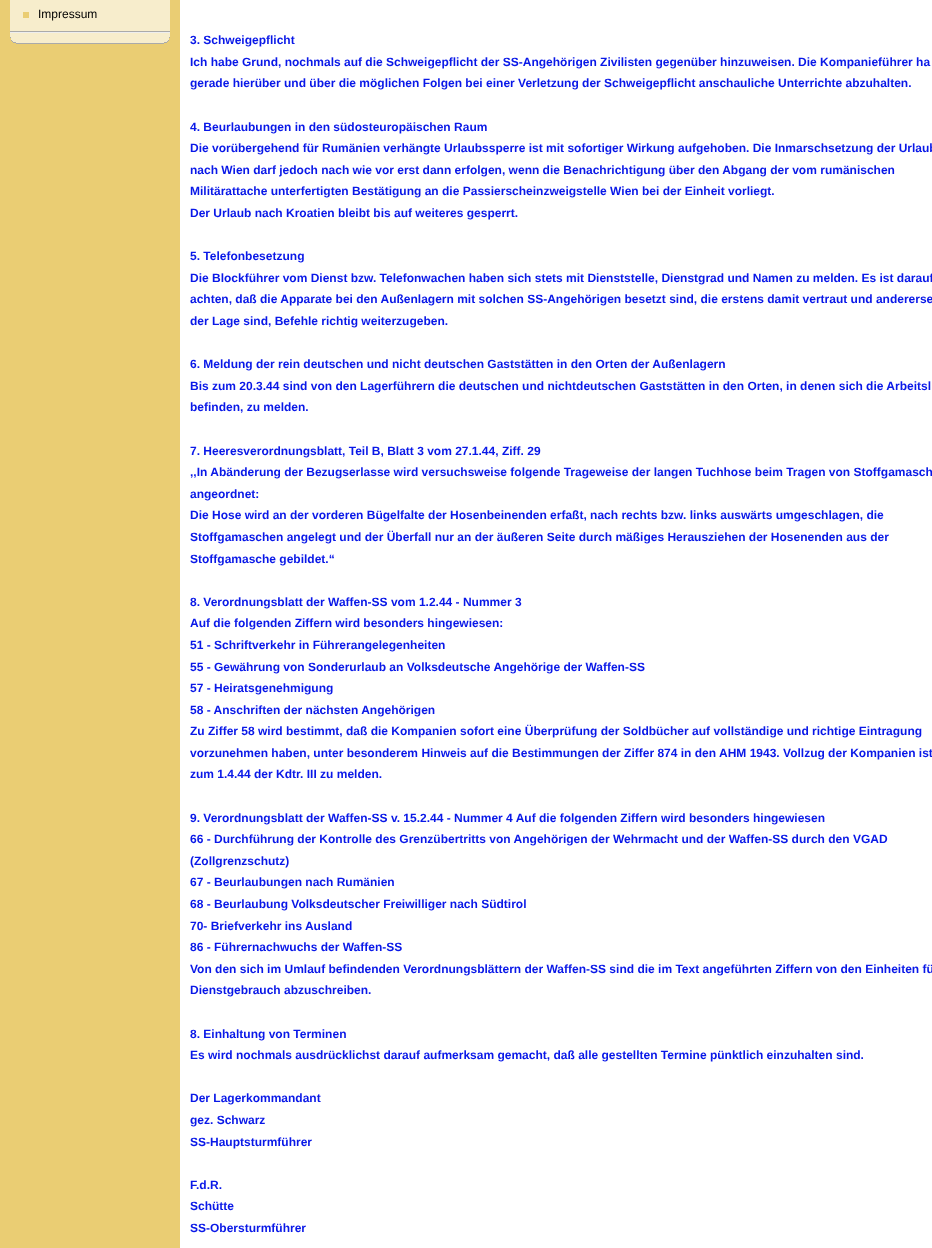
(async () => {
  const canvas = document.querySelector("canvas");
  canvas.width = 932;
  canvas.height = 1248;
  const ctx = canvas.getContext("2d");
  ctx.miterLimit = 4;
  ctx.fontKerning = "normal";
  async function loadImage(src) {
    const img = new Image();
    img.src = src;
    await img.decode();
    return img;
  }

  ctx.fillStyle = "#eacd73";
  ctx.fillRect(0, 0, 932, 1248);
  for (const [x, y, w, h, color] of [
    [10, 0, 160, 31, "#f7edcc"],
    [10, 31, 160, 1, "#aaaaaa"],
    [23, 12, 6, 6, "#eacd73"],
  ]) {
    ctx.fillStyle = color;
    ctx.fillRect(x, y, w, h);
  }
  ctx.drawImage(await loadImage("img/1.png"), 10, 33, 160, 11);
  ctx.fillStyle = "#eeeeee";
  ctx.fillRect(10, 32, 160, 1);
  ctx.fillStyle = "#ffffff";
  ctx.fillRect(180, 0, 752, 1248);
  ctx.font = "12px Liberation Sans";
  ctx.fillStyle = "#000000";
  ctx.fillText("Impressum", 38, 18);
  ctx.font = "bold 12px Liberation Sans";
  ctx.fillStyle = "#0918e8";
  for (const [text, x, y] of [
    ["3. Schweigepflicht", 190, 44],
    ["Ich habe Grund, nochmals auf die Schweigepflicht der SS-Angehörigen Zivilisten gegenüber hinzuweisen. Die Kompanieführer ha", 190, 66],
    ["gerade hierüber und über die möglichen Folgen bei einer Verletzung der Schweigepflicht anschauliche Unterrichte abzuhalten.", 190, 87],
    ["4. Beurlaubungen in den südosteuropäischen Raum", 190, 131],
    ["Die vorübergehend für Rumänien verhängte Urlaubssperre ist mit sofortiger Wirkung aufgehoben. Die Inmarschsetzung der Urlaub", 190, 152],
    ["nach Wien darf jedoch nach wie vor erst dann erfolgen, wenn die Benachrichtigung über den Abgang der vom rumänischen", 190, 174],
    ["Militärattache unterfertigten Bestätigung an die Passierscheinzweigstelle Wien bei der Einheit vorliegt.", 190, 195],
    ["Der Urlaub nach Kroatien bleibt bis auf weiteres gesperrt.", 190, 217],
    ["5. Telefonbesetzung", 190, 260],
    ["Die Blockführer vom Dienst bzw. Telefonwachen haben sich stets mit Dienststelle, Dienstgrad und Namen zu melden. Es ist darauf", 190, 282],
    ["achten, daß die Apparate bei den Außenlagern mit solchen SS-Angehörigen besetzt sind, die erstens damit vertraut und andererse", 190, 303],
    ["der Lage sind, Befehle richtig weiterzugeben.", 190, 325],
    ["6. Meldung der rein deutschen und nicht deutschen Gaststätten in den Orten der Außenlagern", 190, 368],
    ["Bis zum 20.3.44 sind von den Lagerführern die deutschen und nichtdeutschen Gaststätten in den Orten, in denen sich die Arbeitsl", 190, 390],
    ["befinden, zu melden.", 190, 411],
    ["7. Heeresverordnungsblatt, Teil B, Blatt 3 vom 27.1.44, Ziff. 29", 190, 455],
    [",,In Abänderung der Bezugserlasse wird versuchsweise folgende Trageweise der langen Tuchhose beim Tragen von Stoffgamasch", 190, 476],
    ["angeordnet:", 190, 498],
    ["Die Hose wird an der vorderen Bügelfalte der Hosenbeinenden erfaßt, nach rechts bzw. links auswärts umgeschlagen, die", 190, 519],
    ["Stoffgamaschen angelegt und der Überfall nur an der äußeren Seite durch mäßiges Herausziehen der Hosenenden aus der", 190, 541],
    ["Stoffgamasche gebildet.“", 190, 563],
    ["8. Verordnungsblatt der Waffen-SS vom 1.2.44 - Nummer 3", 190, 606],
    ["Auf die folgenden Ziffern wird besonders hingewiesen:", 190, 627],
    ["51 - Schriftverkehr in Führerangelegenheiten", 190, 649],
    ["55 - Gewährung von Sonderurlaub an Volksdeutsche Angehörige der Waffen-SS", 190, 671],
    ["57 - Heiratsgenehmigung", 190, 692],
    ["58 - Anschriften der nächsten Angehörigen", 190, 714],
    ["Zu Ziffer 58 wird bestimmt, daß die Kompanien sofort eine Überprüfung der Soldbücher auf vollständige und richtige Eintragung", 190, 735],
    ["vorzunehmen haben, unter besonderem Hinweis auf die Bestimmungen der Ziffer 874 in den AHM 1943. Vollzug der Kompanien ist", 190, 757],
    ["zum 1.4.44 der Kdtr. III zu melden.", 190, 778],
    ["9. Verordnungsblatt der Waffen-SS v. 15.2.44 - Nummer 4 Auf die folgenden Ziffern wird besonders hingewiesen", 190, 822],
    ["66 - Durchführung der Kontrolle des Grenzübertritts von Angehörigen der Wehrmacht und der Waffen-SS durch den VGAD", 190, 843],
    ["(Zollgrenzschutz)", 190, 865],
    ["67 - Beurlaubungen nach Rumänien", 190, 886],
    ["68 - Beurlaubung Volksdeutscher Freiwilliger nach Südtirol", 190, 908],
    ["70- Briefverkehr ins Ausland", 190, 930],
    ["86 - Führernachwuchs der Waffen-SS", 190, 951],
    ["Von den sich im Umlauf befindenden Verordnungsblättern der Waffen-SS sind die im Text angeführten Ziffern von den Einheiten fü", 190, 973],
    ["Dienstgebrauch abzuschreiben.", 190, 994],
    ["8. Einhaltung von Terminen", 190, 1038],
    ["Es wird nochmals ausdrücklichst darauf aufmerksam gemacht, daß alle gestellten Termine pünktlich einzuhalten sind.", 190, 1059],
    ["Der Lagerkommandant", 190, 1102],
    ["gez. Schwarz", 190, 1124],
    ["SS-Hauptsturmführer", 190, 1146],
    ["F.d.R.", 190, 1189],
    ["Schütte", 190, 1210],
    ["SS-Obersturmführer", 190, 1232],
  ]) {
    ctx.fillText(text, x, y);
  }
})();
